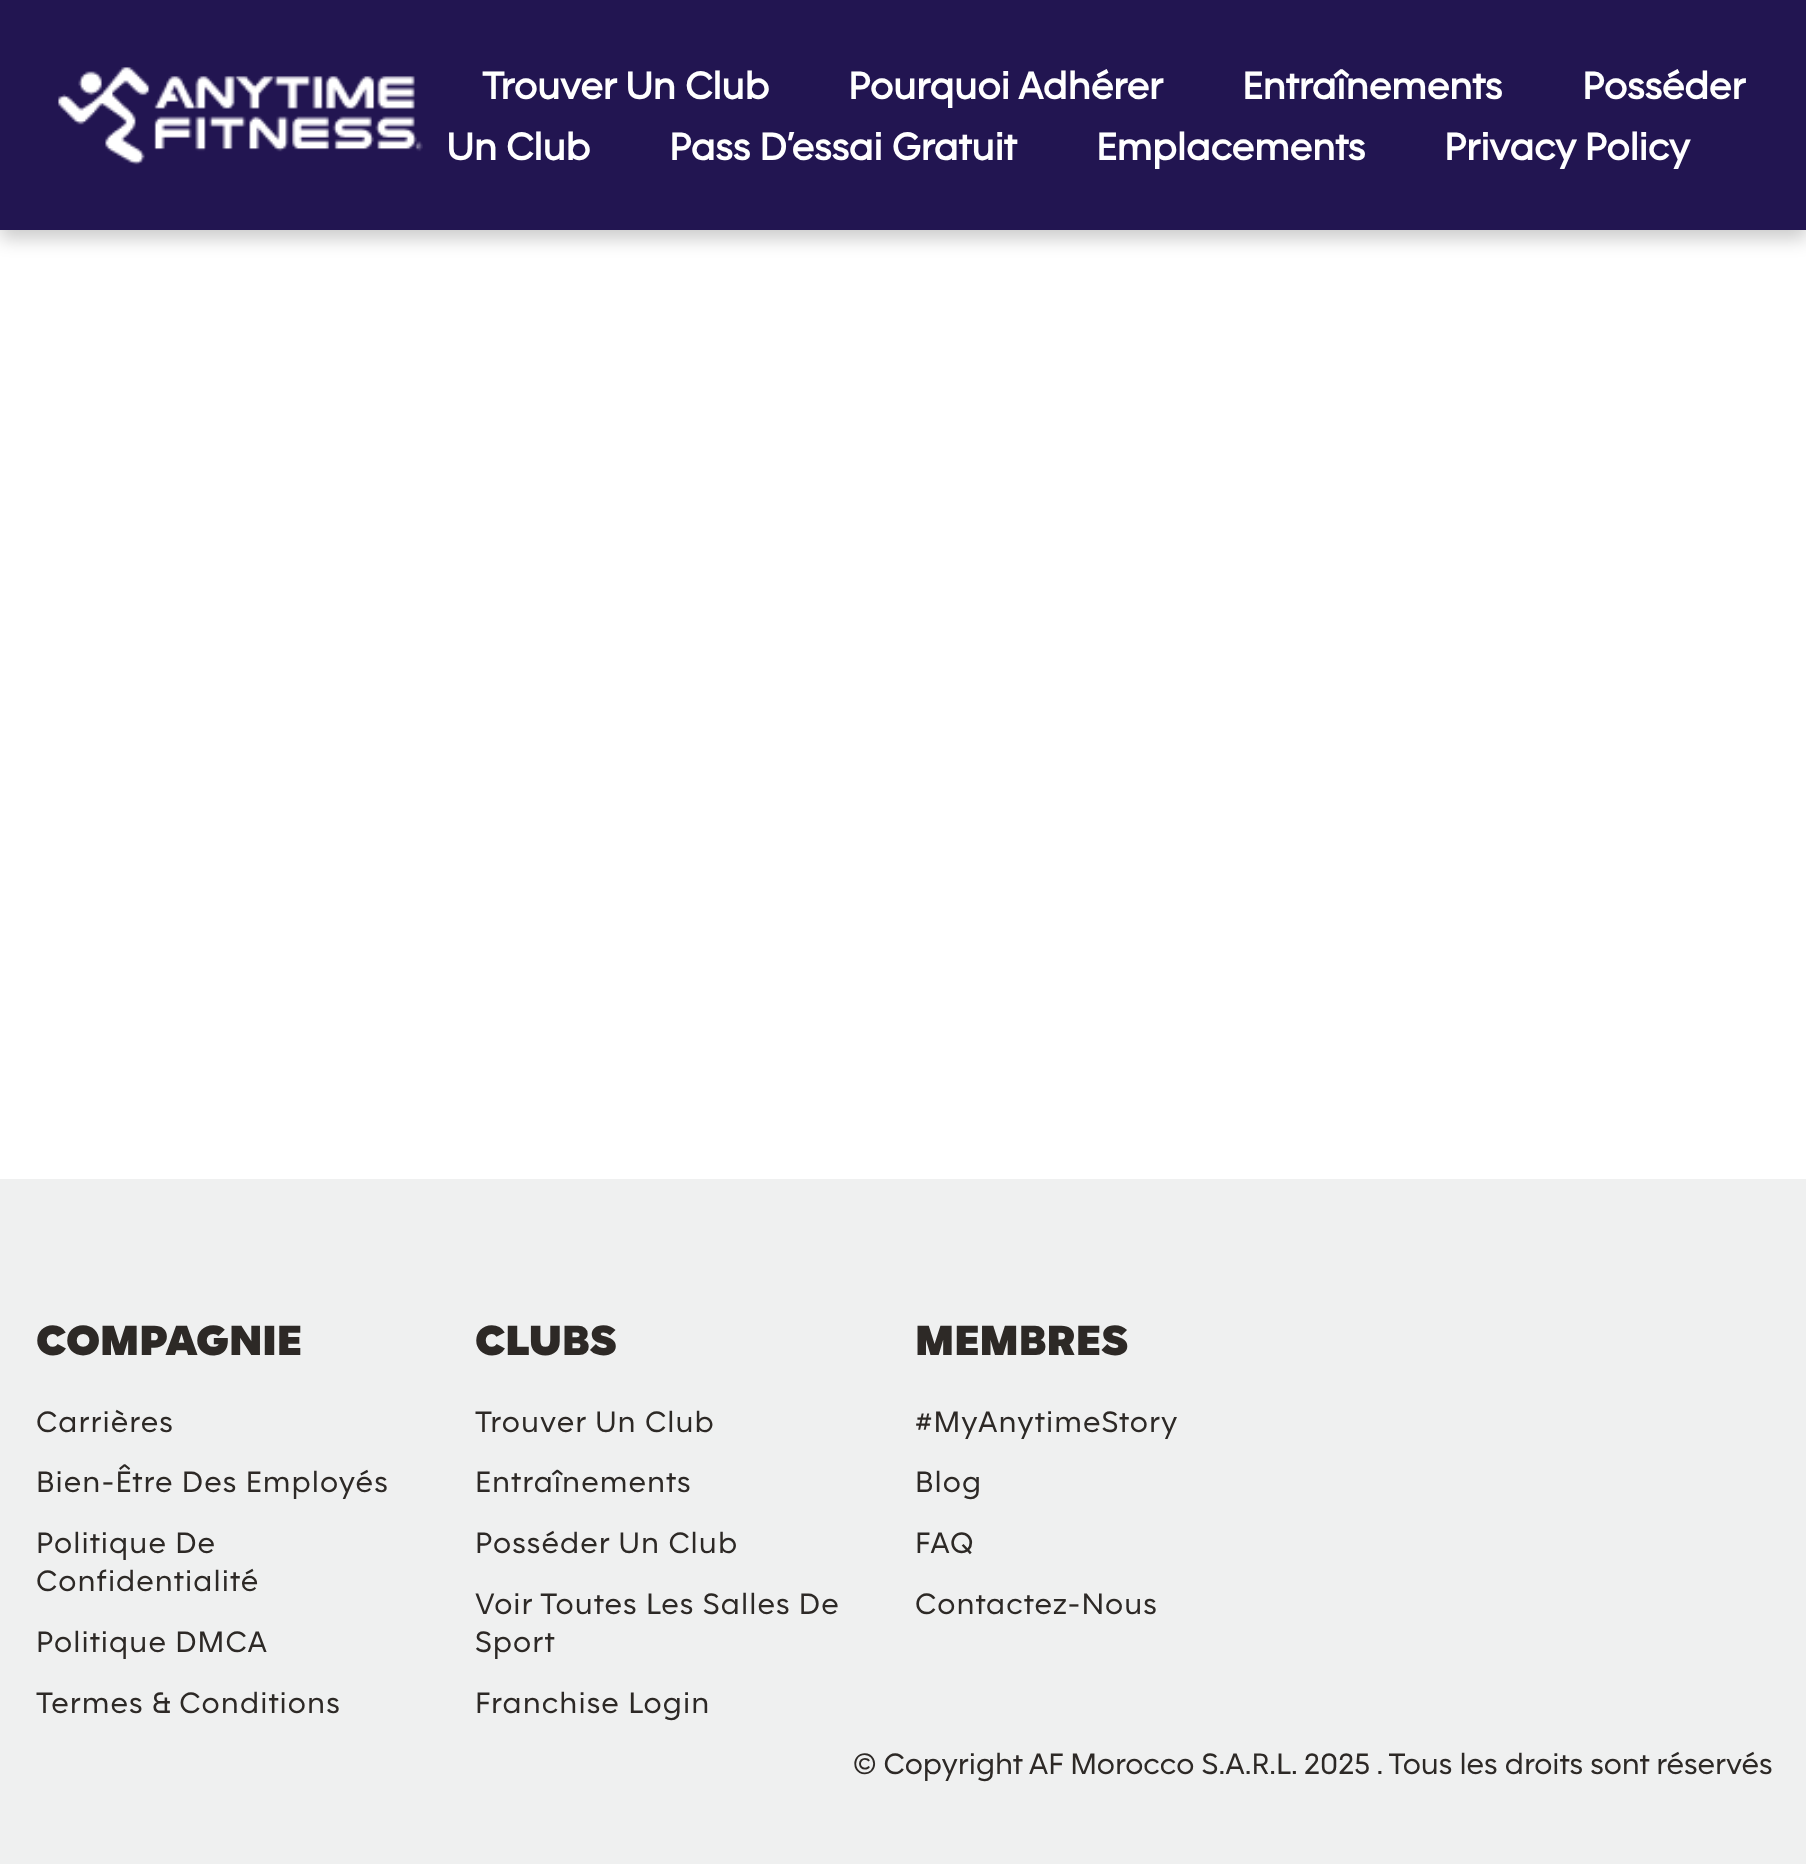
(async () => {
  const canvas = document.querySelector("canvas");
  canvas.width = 1806;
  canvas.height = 1864;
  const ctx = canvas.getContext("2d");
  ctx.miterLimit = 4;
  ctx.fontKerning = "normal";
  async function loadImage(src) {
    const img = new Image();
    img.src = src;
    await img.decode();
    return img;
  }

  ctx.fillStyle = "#ffffff";
  ctx.fillRect(0, 0, 1806, 1864);
  ctx.fillStyle = "rgba(0, 0, 0, 0.2)";
  ctx.filter = "blur(9px)";
  ctx.beginPath();
  ctx.rect(0, 9, 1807, 230);
  ctx.fill();
  ctx.filter = "none";
  ctx.fillStyle = "#221551";
  ctx.fillRect(0, 0, 1806, 230);
  ctx.drawImage(await loadImage("img/1.png"), 58, 67, 365, 98);
  ctx.fillStyle = "#eff0f0";
  ctx.fillRect(0, 1179, 1806, 685);
  ctx.font = "bold 40.5px 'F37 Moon'";
  ctx.fillStyle = "#ffffff";
  for (const [text, x, y] of [
    ["Trouver Un Club", 482, 99],
    ["Pourquoi Adhérer", 848, 99],
    ["Entraînements", 1242, 99],
    ["Posséder", 1582, 99],
    ["Un Club", 446, 160],
    ["Pass D’essai Gratuit", 669, 160],
    ["Emplacements", 1096, 160],
    ["Privacy Policy", 1444, 160],
  ]) {
    ctx.fillText(text, x, y);
  }
  ctx.font = "900 45px 'F37 Moon'";
  ctx.fillStyle = "#2d2926";
  ctx.fillText("COMPAGNIE", 36, 1355);
  ctx.letterSpacing = "1.1px";
  ctx.font = "31.5px 'F37 Moon'";
  for (const [text, x, y] of [
    ["Carrières", 36, 1432],
    ["Bien-Être Des Employés", 36, 1492],
    ["Politique De", 36, 1553],
    ["Confidentialité", 36, 1591],
    ["Politique DMCA", 36, 1652],
    ["Termes & Conditions", 36, 1713],
  ]) {
    ctx.fillText(text, x, y);
  }
  ctx.letterSpacing = "0px";
  ctx.font = "900 45px 'F37 Moon'";
  ctx.fillText("CLUBS", 475, 1355);
  ctx.letterSpacing = "1.1px";
  ctx.font = "31.5px 'F37 Moon'";
  for (const [text, x, y] of [
    ["Trouver Un Club", 475, 1432],
    ["Entraînements", 475, 1492],
    ["Posséder Un Club", 475, 1553],
    ["Voir Toutes Les Salles De", 475, 1614],
    ["Sport", 475, 1652],
    ["Franchise Login", 475, 1713],
  ]) {
    ctx.fillText(text, x, y);
  }
  ctx.letterSpacing = "0px";
  ctx.font = "900 45px 'F37 Moon'";
  ctx.fillText("MEMBRES", 915, 1355);
  ctx.letterSpacing = "1.1px";
  ctx.font = "31.5px 'F37 Moon'";
  for (const [text, x, y] of [
    ["#MyAnytimeStory", 915, 1432],
    ["Blog", 915, 1492],
    ["FAQ", 915, 1553],
    ["Contactez-Nous", 915, 1614],
  ]) {
    ctx.fillText(text, x, y);
  }
  ctx.letterSpacing = "0px";
  ctx.fillText("© Copyright AF Morocco S.A.R.L. 2025 . Tous les droits sont réservés", 853, 1774);
})();
